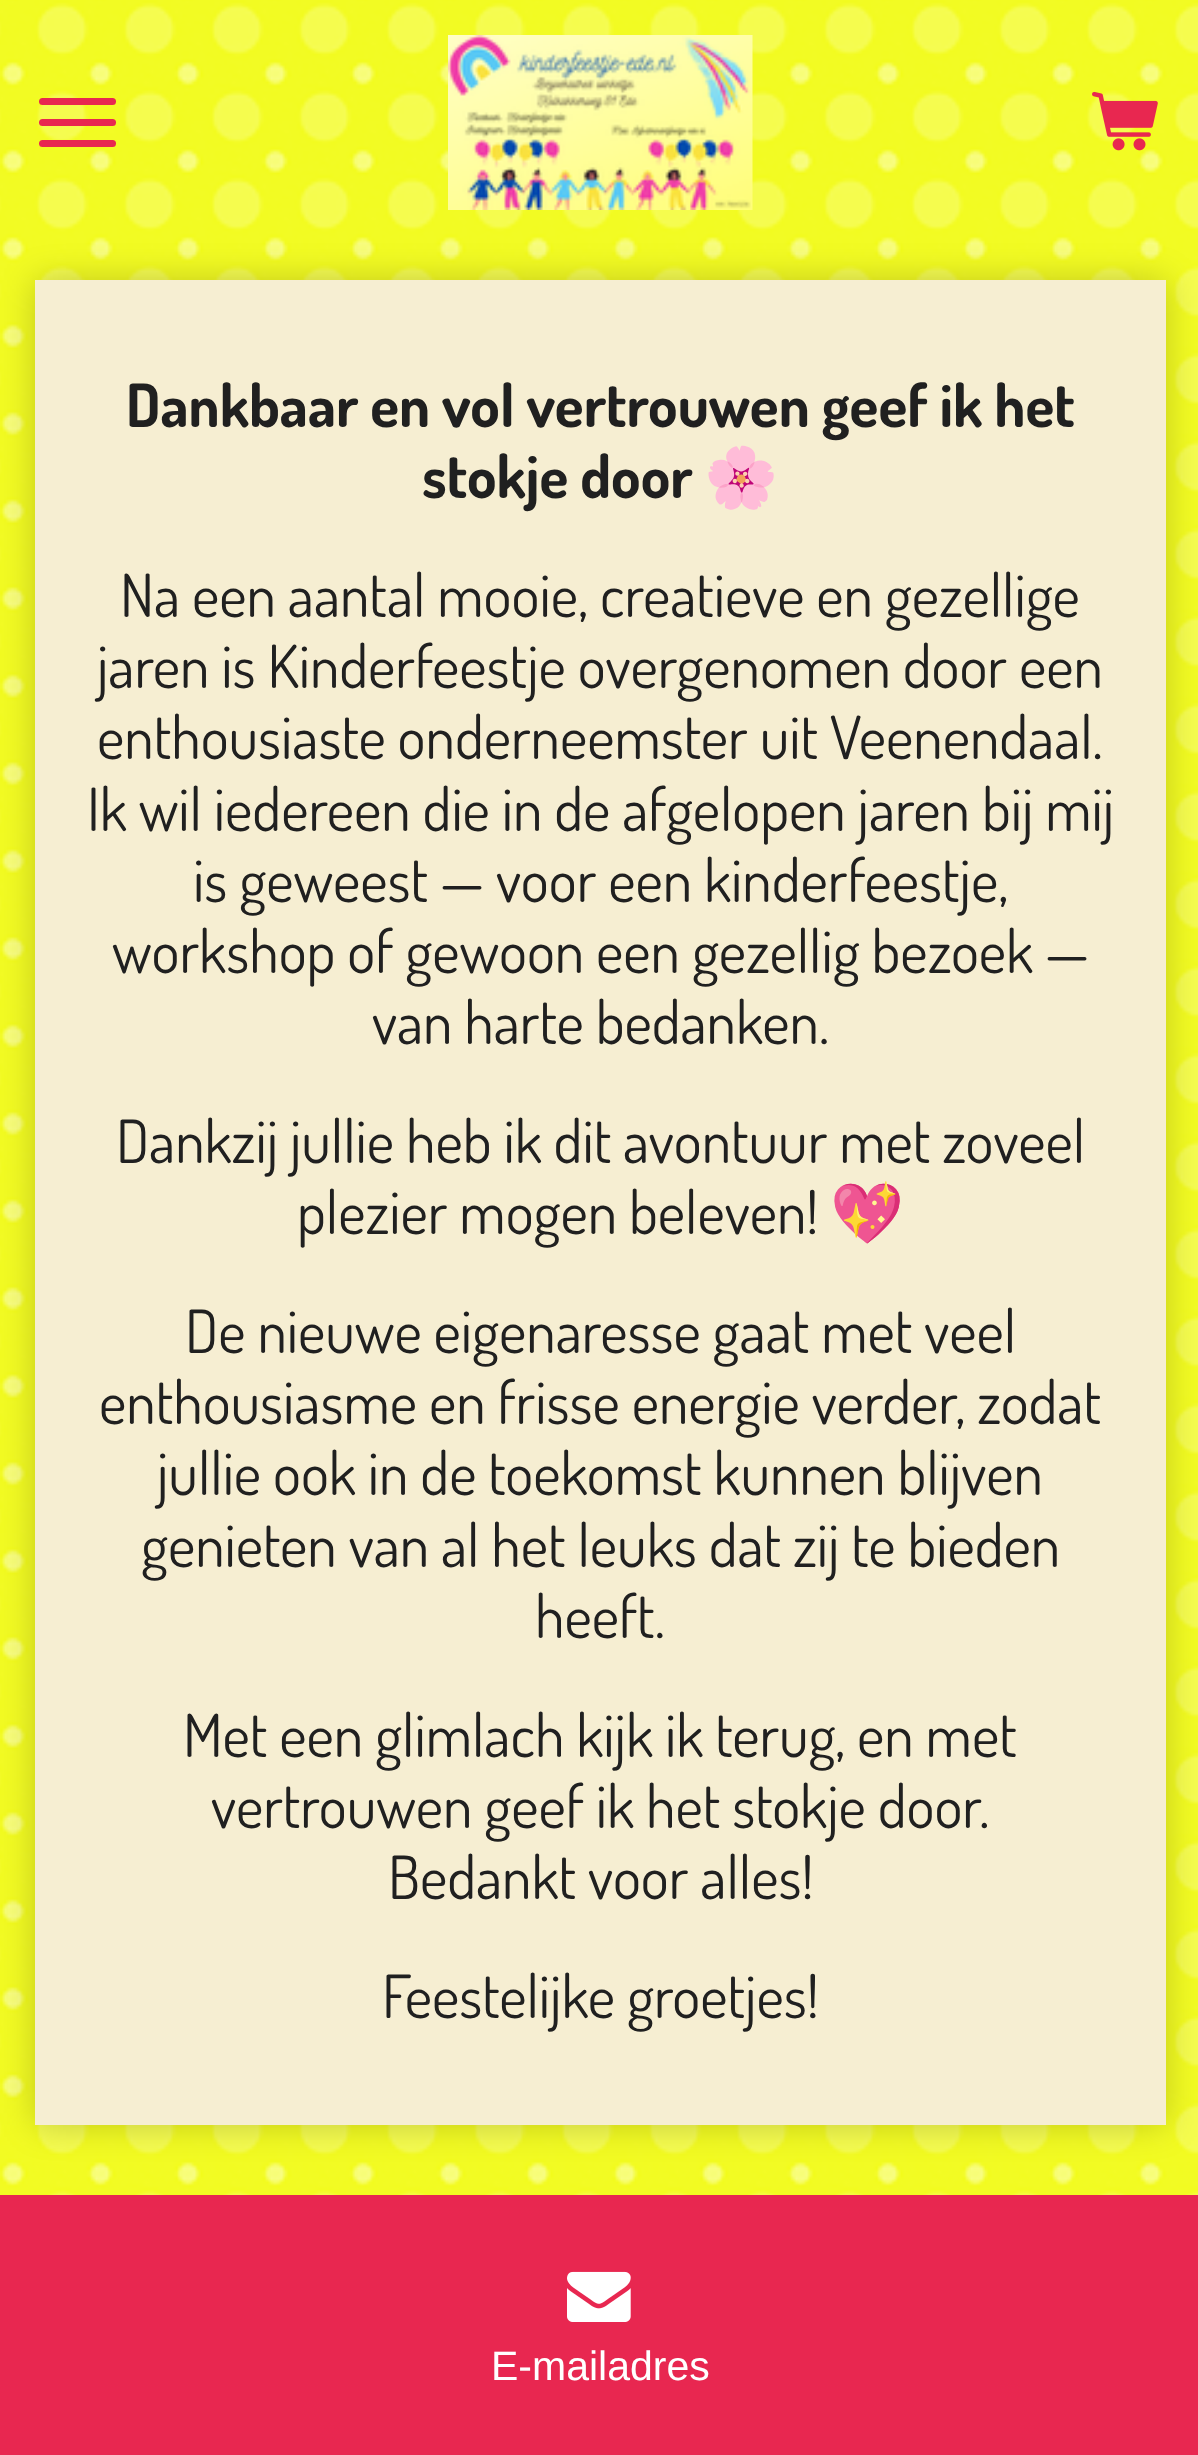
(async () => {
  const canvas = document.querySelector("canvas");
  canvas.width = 1198;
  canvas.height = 2455;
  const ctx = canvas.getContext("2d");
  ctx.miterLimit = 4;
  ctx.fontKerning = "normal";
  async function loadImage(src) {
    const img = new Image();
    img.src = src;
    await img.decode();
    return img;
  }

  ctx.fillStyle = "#f1fb03";
  ctx.fillRect(0, 0, 1198, 2455);
  ctx.drawImage(await loadImage("img/1.png"), 0, 0, 1198, 2195);
  ctx.fillStyle = "#e82750";
  ctx.beginPath();
  ctx.roundRect(39, 119, 77, 7, 3.5);
  ctx.fill();
  ctx.beginPath();
  ctx.roundRect(39, 98, 77, 7, 3.5);
  ctx.fill();
  ctx.beginPath();
  ctx.roundRect(39, 140, 77, 7, 3.5);
  ctx.fill();
  ctx.drawImage(await loadImage("img/2.png"), 448, 35, 305, 175);
  ctx.drawImage(await loadImage("img/3.png"), 1092, 91, 66, 60);
  ctx.fillStyle = "rgba(0, 0, 0, 0.2)";
  ctx.filter = "blur(17.5px)";
  ctx.beginPath();
  ctx.rect(35, 280, 1131, 1845);
  ctx.fill();
  ctx.filter = "none";
  ctx.fillStyle = "#f6eed2";
  ctx.fillRect(35, 280, 1131, 1845);
  ctx.fillStyle = "#e82750";
  ctx.fillRect(0, 2195, 1198, 260);
  ctx.drawImage(await loadImage("img/4.png"), 567, 2271, 64, 51);
  ctx.font = "bold 59.5px Dosis";
  ctx.fillStyle = "#202020";
  ctx.fillText("Dankbaar en vol vertrouwen geef ik het", 126, 427);
  ctx.fillText("stokje door", 422, 498);
  ctx.font = "59.5px Noto Color Emoji";
  ctx.fillStyle = "#e82750";
  ctx.fillText("🌸", 704, 498);
  ctx.font = "59.5px Dosis";
  ctx.fillStyle = "#202020";
  for (const [text, x, y] of [
    ["Na een aantal mooie, creatieve en gezellige", 120, 617],
    ["jaren is Kinderfeestje overgenomen door een", 97, 688],
    ["enthousiaste onderneemster uit Veenendaal.", 97, 759],
    ["Ik wil iedereen die in de afgelopen jaren bij mij", 87, 831],
    ["is geweest — voor een kinderfeestje,", 193, 902],
    ["workshop of gewoon een gezellig bezoek —", 112, 973],
    ["van harte bedanken.", 372, 1044],
    ["Dankzij jullie heb ik dit avontuur met zoveel", 116, 1163],
    ["plezier mogen beleven!", 297, 1234],
  ]) {
    ctx.fillText(text, x, y);
  }
  ctx.font = "59.5px Noto Color Emoji";
  ctx.fillText("💖", 830, 1234);
  ctx.font = "59.5px Dosis";
  for (const [text, x, y] of [
    ["De nieuwe eigenaresse gaat met veel", 185, 1353],
    ["enthousiasme en frisse energie verder, zodat", 99, 1424],
    ["jullie ook in de toekomst kunnen blijven", 157, 1495],
    ["genieten van al het leuks dat zij te bieden", 141, 1567],
    ["heeft.", 535, 1638],
    ["Met een glimlach kijk ik terug, en met", 183, 1757],
    ["vertrouwen geef ik het stokje door.", 211, 1828],
    ["Bedankt voor alles!", 388, 1899],
    ["Feestelijke groetjes!", 382, 2018],
  ]) {
    ctx.fillText(text, x, y);
  }
  ctx.font = "41px Liberation Sans";
  ctx.fillStyle = "#ffffff";
  ctx.fillText("E-mailadres", 491, 2380);
})();
